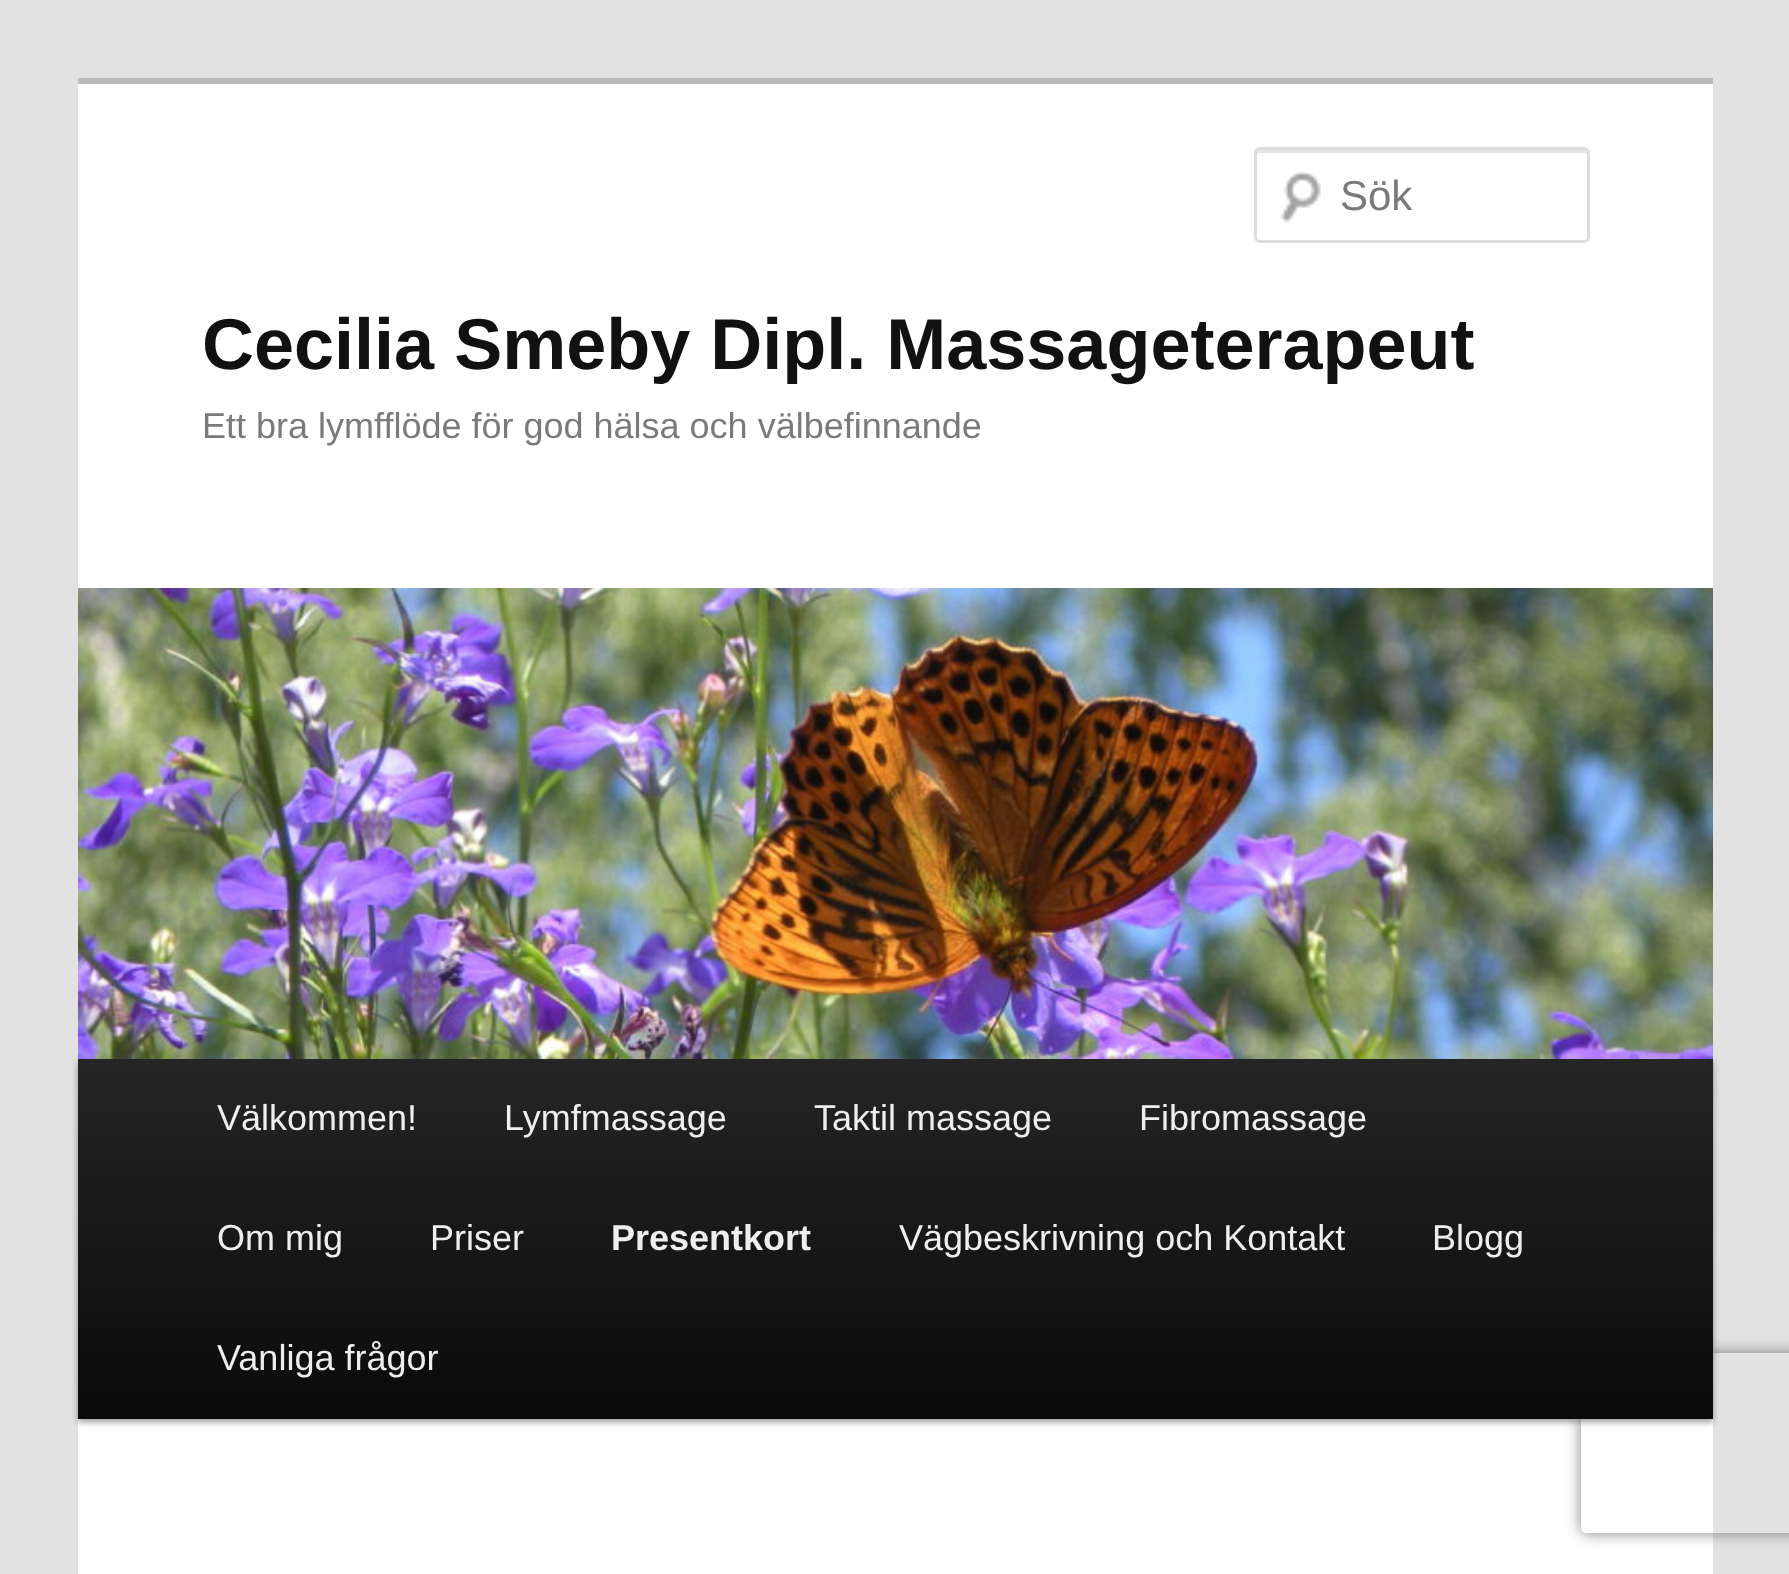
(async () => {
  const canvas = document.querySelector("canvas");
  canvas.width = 1789;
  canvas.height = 1574;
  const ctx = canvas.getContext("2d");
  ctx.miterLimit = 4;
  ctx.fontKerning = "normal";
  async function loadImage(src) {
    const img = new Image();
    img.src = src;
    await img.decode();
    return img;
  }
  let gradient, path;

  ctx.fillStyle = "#e2e2e2";
  ctx.fillRect(0, 0, 1789, 1574);
  ctx.fillStyle = "#ffffff";
  ctx.fillRect(78, 84, 1635, 1490);
  ctx.fillStyle = "#bbbbbb";
  ctx.fillRect(78, 78, 1635, 6);
  ctx.drawImage(await loadImage("img/1.png"), 1280, 171, 41, 52);
  ctx.fillStyle = "#e6e6e6";
  path = new Path2D("M1260 153H1584C1586 153 1587 154 1587 156V153C1587 151 1586 150 1584 150H1260C1258 150 1257 151 1257 153V156C1257 154 1258 153 1260 153Z");
  ctx.fill(path);
  ctx.beginPath();
  ctx.roundRect(1255.5, 148.5, 333, 93, 4.5);
  ctx.strokeStyle = "#dddddd";
  ctx.lineWidth = 3;
  ctx.stroke();
  ctx.fillStyle = "rgba(0, 0, 0, 0.4)";
  ctx.filter = "blur(3px)";
  ctx.beginPath();
  ctx.rect(78, 1062, 1635, 360);
  ctx.fill();
  ctx.filter = "none";
  ctx.drawImage(await loadImage("img/2.png"), 78, 588, 1635, 471);
  ctx.save();
  path = new Path2D("M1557 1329H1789V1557H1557ZM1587 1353H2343C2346.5 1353 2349 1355.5 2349 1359V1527C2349 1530.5 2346.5 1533 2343 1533H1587C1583.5 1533 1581 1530.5 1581 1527V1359C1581 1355.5 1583.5 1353 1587 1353Z");
  ctx.clip(path, "evenodd");
  ctx.fillStyle = "#808080";
  ctx.filter = "blur(7.5px)";
  ctx.beginPath();
  ctx.roundRect(1581, 1353, 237, 180, 6);
  ctx.fill();
  ctx.filter = "none";
  ctx.restore();
  gradient = ctx.createLinearGradient(896, 1059, 896, 1419);
  gradient.addColorStop(0, "#252525");
  gradient.addColorStop(1, "#0a0a0a");
  ctx.fillStyle = gradient;
  ctx.fillRect(78, 1059, 1635, 360);
  ctx.font = "42px Liberation Sans";
  ctx.fillStyle = "#7a7a7a";
  ctx.fillText("Sök", 1340, 210);
  ctx.font = "bold 72px Liberation Sans";
  ctx.fillStyle = "#111111";
  ctx.fillText("Cecilia Smeby Dipl. Massageterapeut", 202, 369);
  ctx.font = "36px Liberation Sans";
  ctx.fillStyle = "#7a7a7a";
  ctx.fillText("Ett bra lymfflöde för god hälsa och välbefinnande", 202, 438);
  ctx.fillStyle = "#eeeeee";
  for (const [text, x, y] of [
    ["Välkommen!", 217, 1130],
    ["Lymfmassage", 504, 1130],
    ["Taktil massage", 814, 1130],
    ["Fibromassage", 1139, 1130],
    ["Om mig", 217, 1250],
    ["Priser", 430, 1250],
  ]) {
    ctx.fillText(text, x, y);
  }
  ctx.font = "bold 36px Liberation Sans";
  ctx.fillText("Presentkort", 611, 1250);
  ctx.font = "36px Liberation Sans";
  for (const [text, x, y] of [
    ["Vägbeskrivning och Kontakt", 899, 1250],
    ["Blogg", 1432, 1250],
    ["Vanliga frågor", 217, 1370],
  ]) {
    ctx.fillText(text, x, y);
  }
})();
